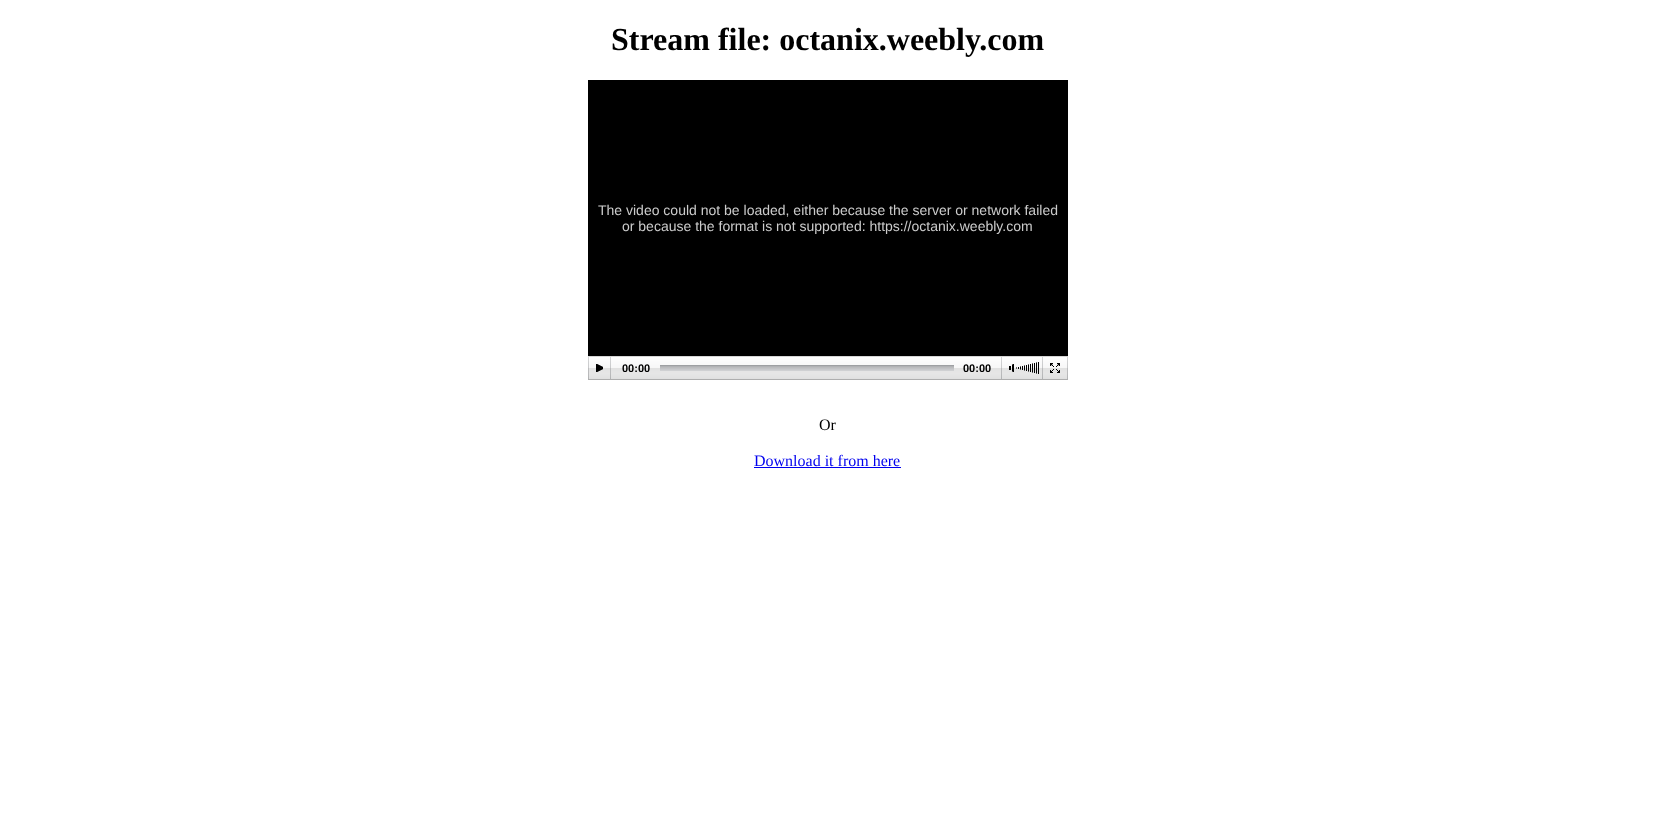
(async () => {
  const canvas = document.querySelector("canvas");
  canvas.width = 1655;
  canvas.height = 830;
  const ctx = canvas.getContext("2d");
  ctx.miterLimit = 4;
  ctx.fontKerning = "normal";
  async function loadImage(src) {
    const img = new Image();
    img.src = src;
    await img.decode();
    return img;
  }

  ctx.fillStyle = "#ffffff";
  ctx.fillRect(0, 0, 1655, 830);
  ctx.fillStyle = "#000000";
  ctx.fillRect(588, 80, 480, 276);
  ctx.drawImage(await loadImage("img/1.png"), 588, 356, 1, 24);
  ctx.drawImage(await loadImage("img/2.png"), 589, 356, 478, 24);
  ctx.drawImage(await loadImage("img/1.png"), 1067, 356, 1, 24);
  ctx.drawImage(await loadImage("img/3.png"), 596, 364, 7, 8);
  ctx.drawImage(await loadImage("img/4.png"), 610, 357, 1, 22);
  ctx.drawImage(await loadImage("img/5.png"), 660, 365, 294, 6);
  ctx.drawImage(await loadImage("img/4.png"), 1001, 357, 1, 22);
  ctx.drawImage(await loadImage("img/6.png"), 1009, 364, 5, 8);
  ctx.drawImage(await loadImage("img/7.png"), 1016, 362, 21, 12);
  ctx.drawImage(await loadImage("img/8.png"), 1016, 362, 23, 12);
  ctx.drawImage(await loadImage("img/4.png"), 1042, 357, 1, 22);
  ctx.drawImage(await loadImage("img/9.png"), 1050, 363, 10, 10);
  ctx.fillStyle = "#0000ee";
  ctx.fillRect(754, 467, 147, 1);
  ctx.font = "bold 32px Liberation Serif";
  ctx.fillStyle = "#000000";
  ctx.fillText("Stream file: octanix.weebly.com", 611, 50);
  ctx.font = "14px Liberation Sans";
  ctx.fillStyle = "#cccccc";
  ctx.fillText("The video could not be loaded, either because the server or network failed", 598, 215);
  ctx.fillText("or because the format is not supported: https://octanix.weebly.com", 622, 231);
  ctx.font = "bold 11px Liberation Sans";
  ctx.fillStyle = "#000000";
  ctx.fillText("00:00", 622, 372);
  ctx.fillText("00:00", 963, 372);
  ctx.font = "16px Liberation Serif";
  ctx.fillText("Or", 819, 430);
  ctx.fillStyle = "#0000ee";
  ctx.fillText("Download it from here", 754, 466);
})();
